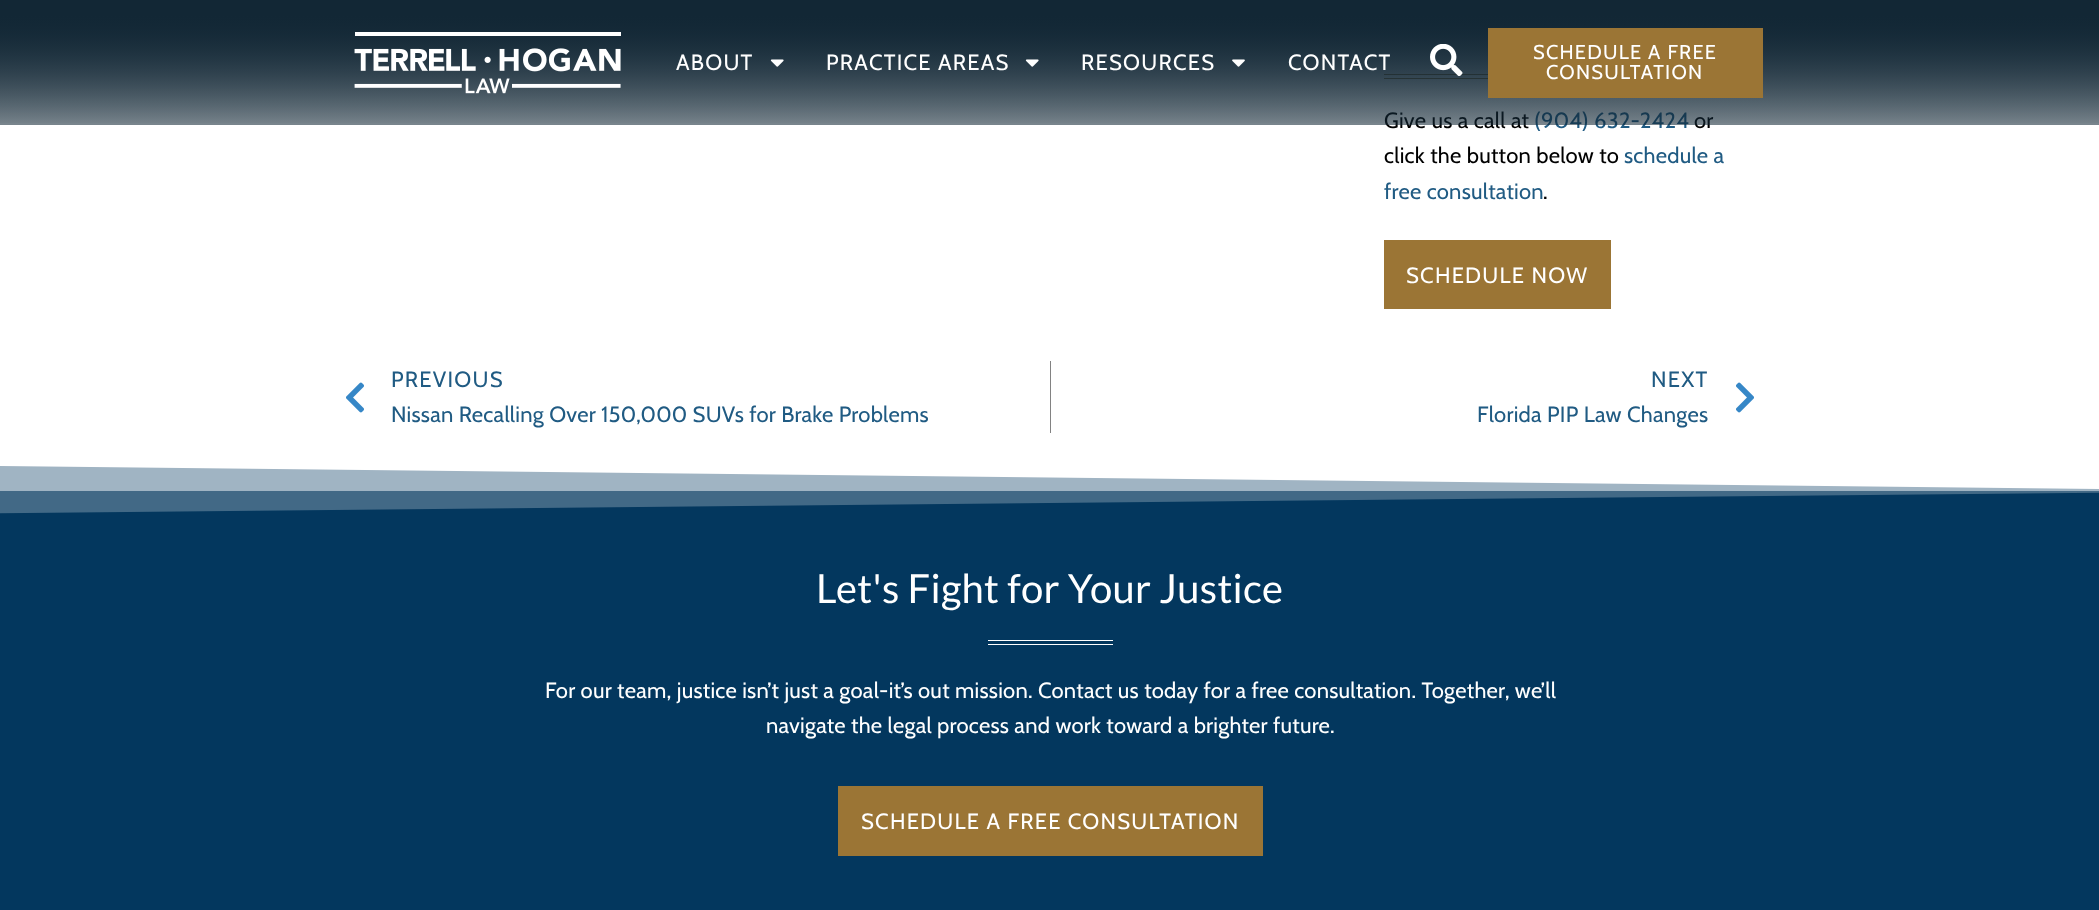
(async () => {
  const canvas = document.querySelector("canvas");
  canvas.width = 2099;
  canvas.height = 910;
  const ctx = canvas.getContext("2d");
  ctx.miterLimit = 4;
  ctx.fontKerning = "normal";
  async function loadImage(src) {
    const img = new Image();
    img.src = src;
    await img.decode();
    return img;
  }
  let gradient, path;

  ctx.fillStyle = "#ffffff";
  ctx.fillRect(0, 0, 2099, 910);
  for (const [x, y, w, h, color] of [
    [1384, 74, 104, 1, "#9b7535"],
    [1384, 78, 104, 1, "#9b7535"],
    [1384, 240, 227, 69, "#9b7535"],
  ]) {
    ctx.fillStyle = color;
    ctx.fillRect(x, y, w, h);
  }
  ctx.drawImage(await loadImage("img/5.png"), 346, 382, 18, 31);
  ctx.fillStyle = "#828282";
  ctx.fillRect(1050, 361, 1, 72);
  ctx.drawImage(await loadImage("img/6.png"), 1736, 382, 18, 31);
  ctx.fillStyle = "#03375e";
  ctx.fillRect(0, 491, 2099, 419);
  ctx.fillStyle = "#819baf";
  ctx.fillRect(0, 466, 2099, 25);
  ctx.fillStyle = "#ffffff";
  path = new Path2D("M-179 464H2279V491Z");
  ctx.fill(path);
  ctx.fillStyle = "rgba(255, 255, 255, 0.25)";
  path = new Path2D("M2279 464H-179V515L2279 491Z");
  ctx.fill(path);
  for (const [x, y, w, h, color] of [
    [988, 640, 125, 1, "#ffffff"],
    [988, 644, 125, 1, "#ffffff"],
    [838, 786, 425, 70, "#9b7535"],
  ]) {
    ctx.fillStyle = color;
    ctx.fillRect(x, y, w, h);
  }
  ctx.letterSpacing = "0.25px";
  ctx.font = "22px Cabin";
  ctx.fillStyle = "#000000";
  ctx.fillText("Give us a call at", 1384, 128);
  ctx.fillStyle = "#205b83";
  ctx.fillText("(904) 632-2424", 1534, 128);
  ctx.fillStyle = "#000000";
  ctx.fillText("or", 1694, 128);
  gradient = ctx.createLinearGradient(1050, 0, 1050, 125);
  gradient.addColorStop(0.1, "#122735");
  gradient.addColorStop(1, "rgba(18, 39, 53, 0)");
  ctx.fillStyle = gradient;
  ctx.fillRect(0, 13, 2099, 110);
  ctx.fillStyle = "rgba(18, 39, 53, 0.57)";
  ctx.fillRect(0, 14, 2099, 111);
  gradient = ctx.createLinearGradient(1050, 0, 1050, 125);
  gradient.addColorStop(0.1, "#122735");
  gradient.addColorStop(1, "rgba(18, 39, 53, 0)");
  ctx.fillStyle = gradient;
  ctx.fillRect(0, 0, 2099, 123);
  ctx.fillStyle = "#9b7535";
  ctx.fillRect(1488, 28, 275, 70);
  ctx.letterSpacing = "1.25px";
  ctx.font = "20px Cabin";
  ctx.fillStyle = "#ffffff";
  ctx.fillText("CONSULTATION", 1546, 79);
  ctx.fillText("SCHEDULE A FREE", 1533, 59);
  ctx.font = "22px Cabin";
  ctx.fillText("CONTACT", 1288, 70);
  ctx.drawImage(await loadImage("img/3.png"), 1232, 59, 13, 8);
  ctx.fillText("RESOURCES", 1081, 70);
  ctx.drawImage(await loadImage("img/2.png"), 1025, 59, 14, 8);
  ctx.fillText("PRACTICE AREAS", 826, 70);
  ctx.drawImage(await loadImage("img/2.png"), 770, 59, 14, 8);
  ctx.fillText("ABOUT", 676, 70);
  ctx.drawImage(await loadImage("img/4.png"), 1430, 44, 33, 32);
  ctx.drawImage(await loadImage("img/1.png"), 354, 32, 267, 62);
  ctx.letterSpacing = "0.25px";
  ctx.fillStyle = "#000000";
  ctx.fillText("click the button below to", 1384, 163);
  ctx.fillStyle = "#205b83";
  ctx.fillText("schedule a", 1624, 163);
  ctx.fillText("free consultation", 1384, 199);
  ctx.fillStyle = "#000000";
  ctx.fillText(".", 1543, 199);
  ctx.letterSpacing = "1.25px";
  ctx.fillStyle = "#ffffff";
  ctx.fillText("SCHEDULE NOW", 1406, 283);
  ctx.fillStyle = "#205b83";
  ctx.fillText("PREVIOUS", 391, 387);
  ctx.letterSpacing = "0.25px";
  ctx.fillText("Nissan Recalling Over 150,000 SUVs for Brake Problems", 391, 422);
  ctx.letterSpacing = "1.25px";
  ctx.fillText("NEXT", 1651, 387);
  ctx.letterSpacing = "0.25px";
  ctx.fillText("Florida PIP Law Changes", 1477, 422);
  ctx.font = "40px Lato";
  ctx.fillStyle = "#ffffff";
  ctx.fillText("Let's Fight for Your Justice", 816, 603);
  ctx.font = "22px Cabin";
  ctx.fillText("For our team, justice isn’t just a goal-it’s out mission. Contact us today for a free consultation. Together, we’ll", 545, 698);
  ctx.fillText("navigate the legal process and work toward a brighter future.", 766, 733);
  ctx.letterSpacing = "1.25px";
  ctx.fillText("SCHEDULE A FREE CONSULTATION", 861, 829);
})();
